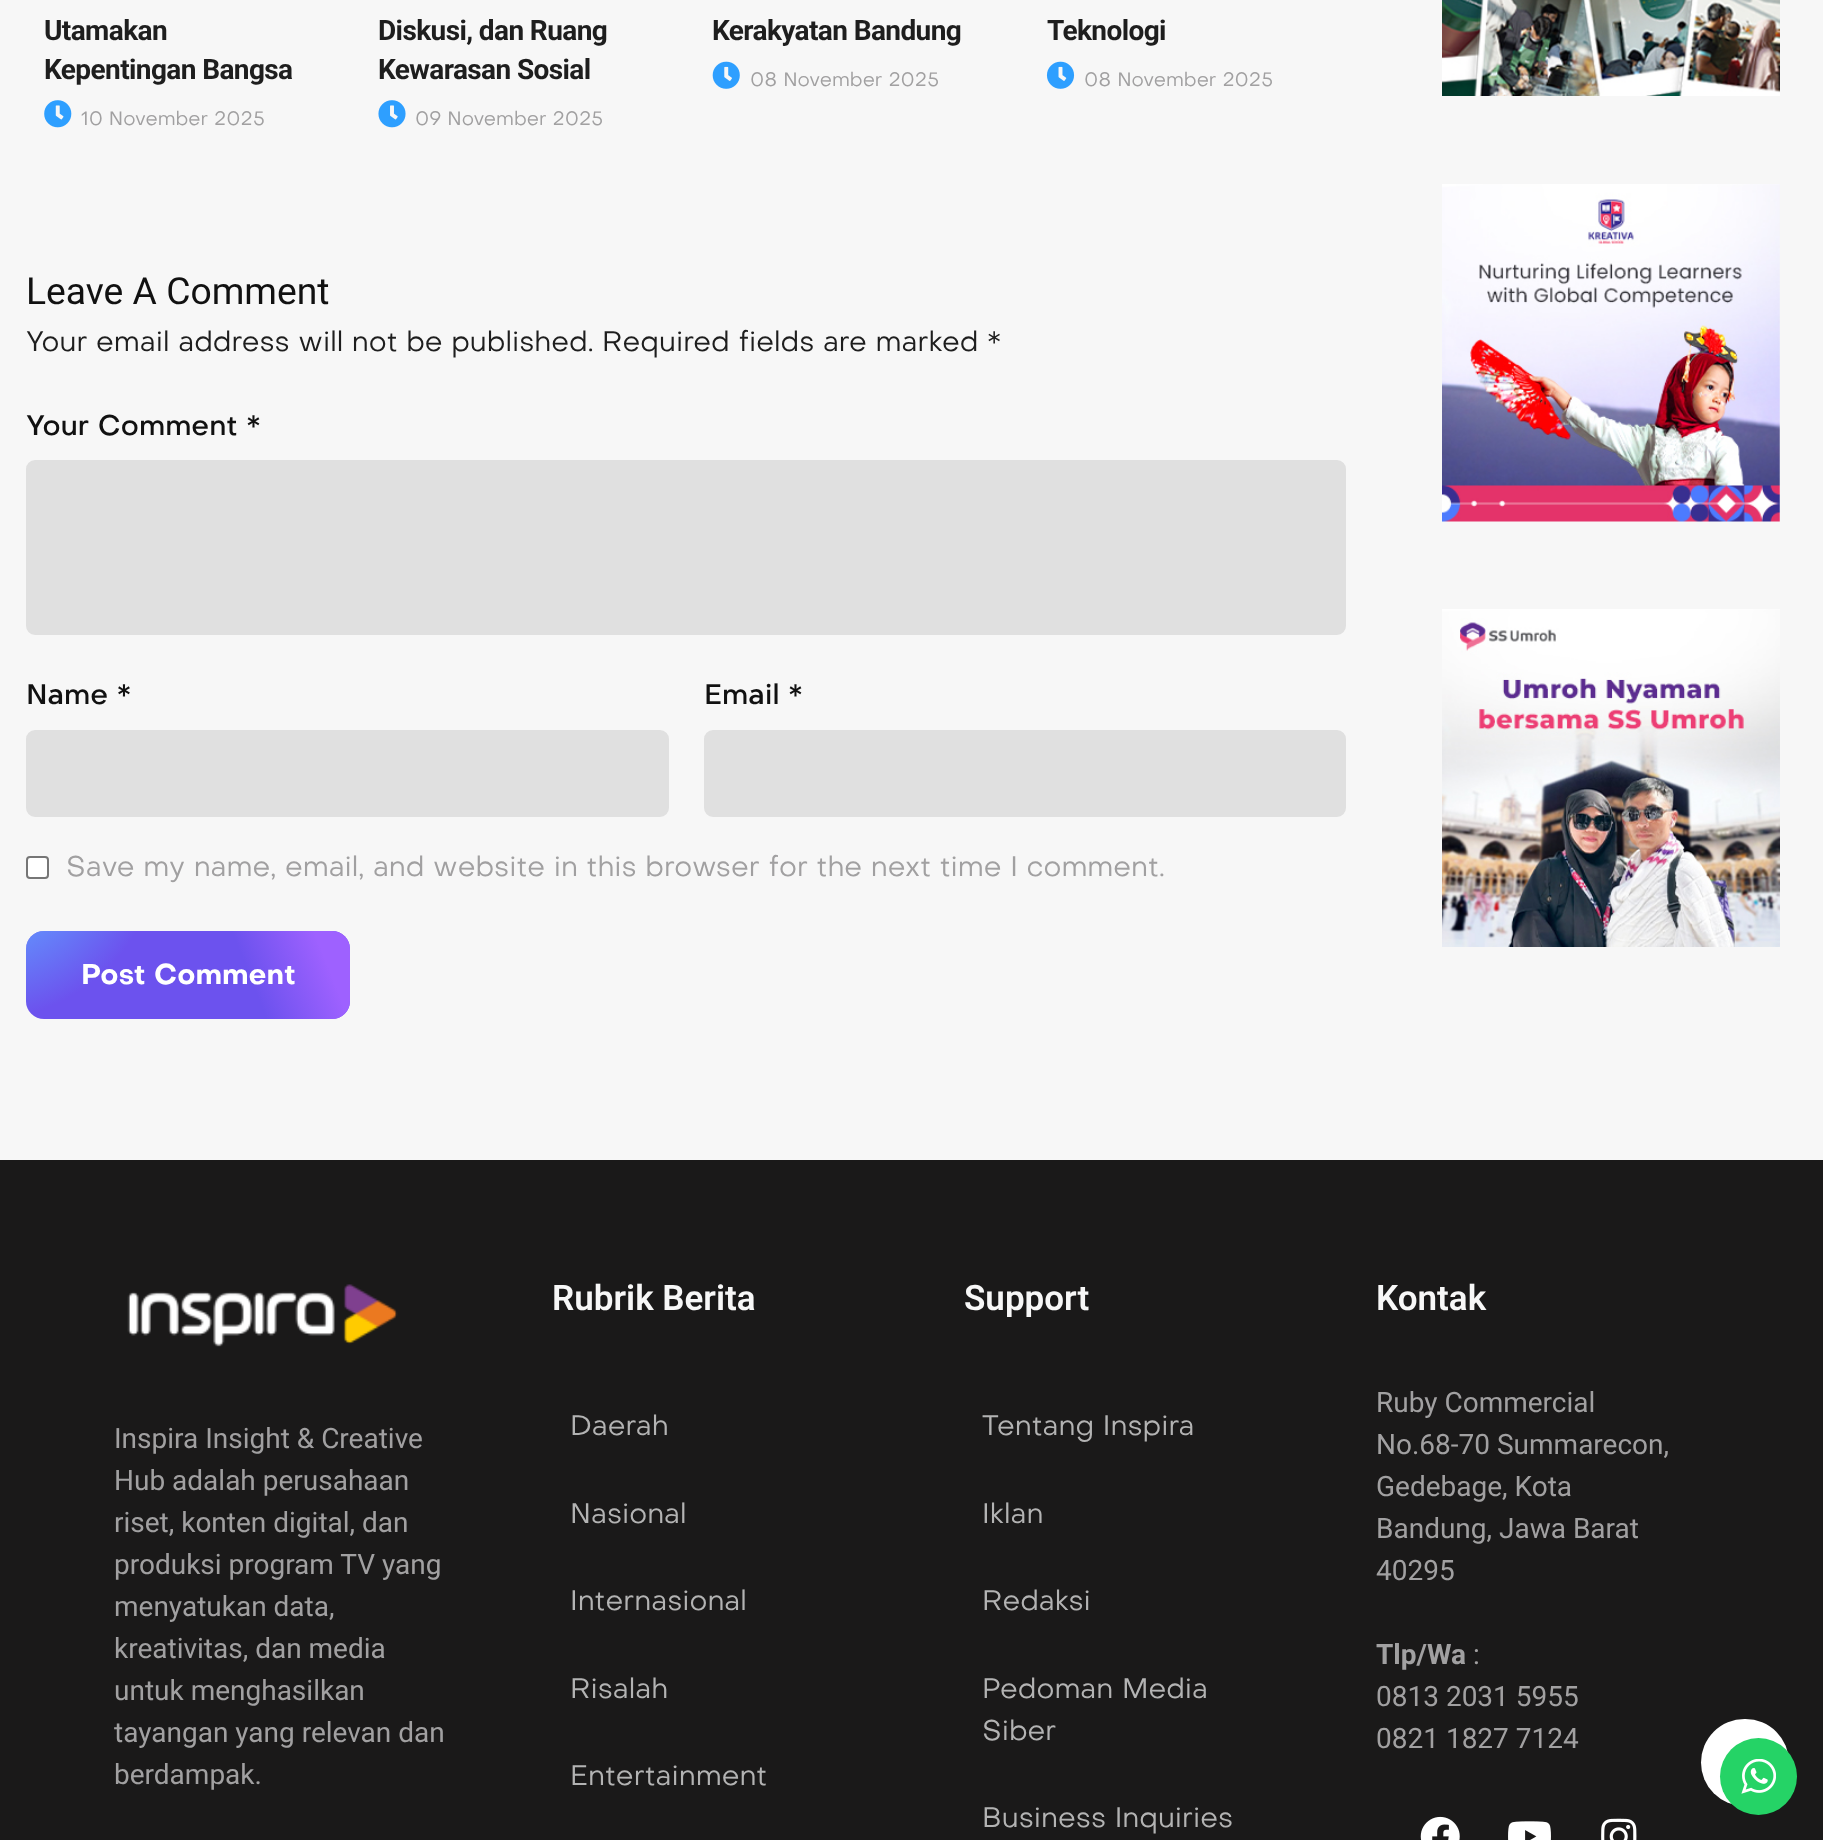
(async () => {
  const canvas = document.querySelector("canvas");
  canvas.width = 1823;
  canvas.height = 1840;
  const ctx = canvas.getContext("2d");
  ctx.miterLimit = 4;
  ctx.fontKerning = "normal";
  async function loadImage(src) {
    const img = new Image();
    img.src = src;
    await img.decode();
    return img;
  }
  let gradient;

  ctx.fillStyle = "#f7f7f7";
  ctx.fillRect(0, 0, 1823, 1840);
  ctx.drawImage(await loadImage("img/1.png"), 44, 100, 28, 28);
  ctx.drawImage(await loadImage("img/2.png"), 378, 100, 28, 28);
  ctx.drawImage(await loadImage("img/3.png"), 712, 61, 28, 28);
  ctx.drawImage(await loadImage("img/4.png"), 1046, 61, 29, 28);
  ctx.fillStyle = "#e0e0e0";
  ctx.beginPath();
  ctx.roundRect(27, 461, 1318, 173, 8);
  ctx.fill();
  ctx.strokeStyle = "#e0e0e0";
  ctx.lineWidth = 2;
  ctx.stroke();
  ctx.beginPath();
  ctx.roundRect(27, 731, 641, 85, 8);
  ctx.fill();
  ctx.stroke();
  ctx.beginPath();
  ctx.roundRect(705, 731, 640, 85, 8);
  ctx.fill();
  ctx.stroke();
  ctx.fillStyle = "#ffffff";
  ctx.beginPath();
  ctx.roundRect(27, 857, 21, 21, 3);
  ctx.fill();
  ctx.strokeStyle = "#767676";
  ctx.stroke();
  ctx.fillStyle = "#6c52ee";
  ctx.beginPath();
  ctx.roundRect(26, 931, 324, 88, 18);
  ctx.fill();
  gradient = ctx.createRadialGradient(-27, 920.47, 0, -27, 920.47, 265);
  gradient.addColorStop(0.29, "#619bff");
  gradient.addColorStop(0.7, "rgba(97, 155, 255, 0)");
  ctx.fillStyle = gradient;
  ctx.beginPath();
  ctx.roundRect(26, 931, 324, 88, 18);
  ctx.save();
  ctx.clip();
  ctx.scale(1, 245 / 265);
  ctx.fillRect(0, 0, 1823, 1991);
  ctx.restore();
  gradient = ctx.createLinearGradient(343, 913, 33, 1036);
  gradient.addColorStop(0.1, "#9e61ff");
  gradient.addColorStop(0.33, "rgba(158, 97, 255, 0)");
  ctx.fillStyle = gradient;
  ctx.beginPath();
  ctx.roundRect(26, 931, 324, 88, 18);
  ctx.fill();
  ctx.drawImage(await loadImage("img/5.png"), 1442, 0, 338, 96);
  ctx.drawImage(await loadImage("img/6.png"), 1442, 184, 338, 338);
  ctx.drawImage(await loadImage("img/7.png"), 1442, 609, 338, 338);
  ctx.fillStyle = "#1a1919";
  ctx.fillRect(0, 1160, 1823, 680);
  ctx.drawImage(await loadImage("img/8.png"), 127, 1284, 271, 63);
  ctx.drawImage(await loadImage("img/9.png"), 1420, 1816, 40, 24);
  ctx.drawImage(await loadImage("img/10.png"), 1508, 1821, 43, 19);
  ctx.drawImage(await loadImage("img/11.png"), 1601, 1818, 36, 22);
  ctx.fillStyle = "#ffffff";
  ctx.beginPath();
  ctx.roundRect(1701, 1719, 88, 87, 43.5);
  ctx.fill();
  ctx.fillStyle = "#25d366";
  ctx.beginPath();
  ctx.arc(1758.5, 1776.5, 38.5, 0, Math.PI * 2);
  ctx.fill();
  ctx.drawImage(await loadImage("img/12.png"), 1741, 1759, 35, 35);
  ctx.letterSpacing = "-0.6px";
  ctx.font = "bold 28px Roboto";
  ctx.fillStyle = "#1e1e1e";
  ctx.fillText("Utamakan", 44, 40);
  ctx.fillText("Kepentingan Bangsa", 44, 79);
  ctx.letterSpacing = "0px";
  ctx.font = "19.25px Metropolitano";
  ctx.fillStyle = "#a1a0a1";
  ctx.fillText("10 November 2025", 81, 125);
  ctx.letterSpacing = "-0.6px";
  ctx.font = "bold 28px Roboto";
  ctx.fillStyle = "#1e1e1e";
  ctx.fillText("Diskusi, dan Ruang", 378, 40);
  ctx.fillText("Kewarasan Sosial", 378, 79);
  ctx.letterSpacing = "0px";
  ctx.font = "19.25px Metropolitano";
  ctx.fillStyle = "#a1a0a1";
  ctx.fillText("09 November 2025", 415, 125);
  ctx.letterSpacing = "-0.6px";
  ctx.font = "bold 28px Roboto";
  ctx.fillStyle = "#1e1e1e";
  ctx.fillText("Kerakyatan Bandung", 712, 40);
  ctx.letterSpacing = "0px";
  ctx.font = "19.25px Metropolitano";
  ctx.fillStyle = "#a1a0a1";
  ctx.fillText("08 November 2025", 750, 86);
  ctx.letterSpacing = "-0.6px";
  ctx.font = "bold 28px Roboto";
  ctx.fillStyle = "#1e1e1e";
  ctx.fillText("Teknologi", 1047, 40);
  ctx.letterSpacing = "0px";
  ctx.font = "19.25px Metropolitano";
  ctx.fillStyle = "#a1a0a1";
  ctx.fillText("08 November 2025", 1084, 86);
  ctx.font = "37.25px Roboto";
  ctx.fillStyle = "#111111";
  ctx.fillText("Leave A Comment", 26, 304);
  ctx.font = "28px Metropolitano";
  ctx.fillStyle = "#1e1e1e";
  ctx.fillText("Your email address will not be published. Required fields are marked *", 26, 351);
  ctx.font = "500 28px Metropolitano";
  ctx.fillStyle = "#111111";
  for (const [text, x, y] of [
    ["Your Comment *", 26, 435],
    ["Name *", 26, 704],
    ["Email *", 704, 704],
  ]) {
    ctx.fillText(text, x, y);
  }
  ctx.font = "28px Metropolitano";
  ctx.fillStyle = "#a1a0a1";
  ctx.fillText("Save my name, email, and website in this browser for the next time I comment.", 66, 876);
  ctx.font = "bold 28px Metropolitano";
  ctx.fillStyle = "#ffffff";
  ctx.fillText("Post Comment", 81, 984);
  ctx.font = "28px Roboto";
  ctx.fillStyle = "#a1a0a1";
  for (const [text, x, y] of [
    ["Inspira Insight & Creative", 114, 1448],
    ["Hub adalah perusahaan", 114, 1490],
    ["riset, konten digital, dan", 114, 1532],
    ["produksi program TV yang", 114, 1574],
    ["menyatukan data,", 114, 1616],
    ["kreativitas, dan media", 114, 1658],
    ["untuk menghasilkan", 114, 1700],
    ["tayangan yang relevan dan", 114, 1742],
    ["berdampak.", 114, 1784],
  ]) {
    ctx.fillText(text, x, y);
  }
  ctx.font = "600 35px Roboto";
  ctx.fillStyle = "#f7f7f7";
  ctx.fillText("Rubrik Berita", 552, 1310);
  ctx.font = "28px Metropolitano";
  ctx.fillStyle = "#b3b3b3";
  for (const [text, x, y] of [
    ["Daerah", 570, 1435],
    ["Nasional", 570, 1523],
    ["Internasional", 570, 1610],
    ["Risalah", 570, 1698],
    ["Entertainment", 570, 1785],
  ]) {
    ctx.fillText(text, x, y);
  }
  ctx.font = "600 35px Roboto";
  ctx.fillStyle = "#f7f7f7";
  ctx.fillText("Support", 964, 1310);
  ctx.font = "28px Metropolitano";
  ctx.fillStyle = "#b3b3b3";
  for (const [text, x, y] of [
    ["Tentang Inspira", 982, 1435],
    ["Iklan", 982, 1523],
    ["Redaksi", 982, 1610],
    ["Pedoman Media", 982, 1698],
    ["Siber", 982, 1740],
    ["Business Inquiries", 982, 1827],
  ]) {
    ctx.fillText(text, x, y);
  }
  ctx.font = "600 35px Roboto";
  ctx.fillStyle = "#f7f7f7";
  ctx.fillText("Kontak", 1376, 1310);
  ctx.font = "28px Roboto";
  ctx.fillStyle = "#a1a0a1";
  for (const [text, x, y] of [
    ["Ruby Commercial", 1376, 1412],
    ["No.68-70 Summarecon,", 1376, 1454],
    ["Gedebage, Kota", 1376, 1496],
    ["Bandung, Jawa Barat", 1376, 1538],
    ["40295", 1376, 1580],
  ]) {
    ctx.fillText(text, x, y);
  }
  ctx.font = "bold 28px Roboto";
  ctx.fillText("Tlp/Wa", 1376, 1664);
  ctx.font = "28px Roboto";
  for (const [text, x, y] of [
    [":", 1473, 1664],
    ["0813 2031 5955", 1376, 1706],
    ["0821 1827 7124", 1376, 1748],
  ]) {
    ctx.fillText(text, x, y);
  }
})();
